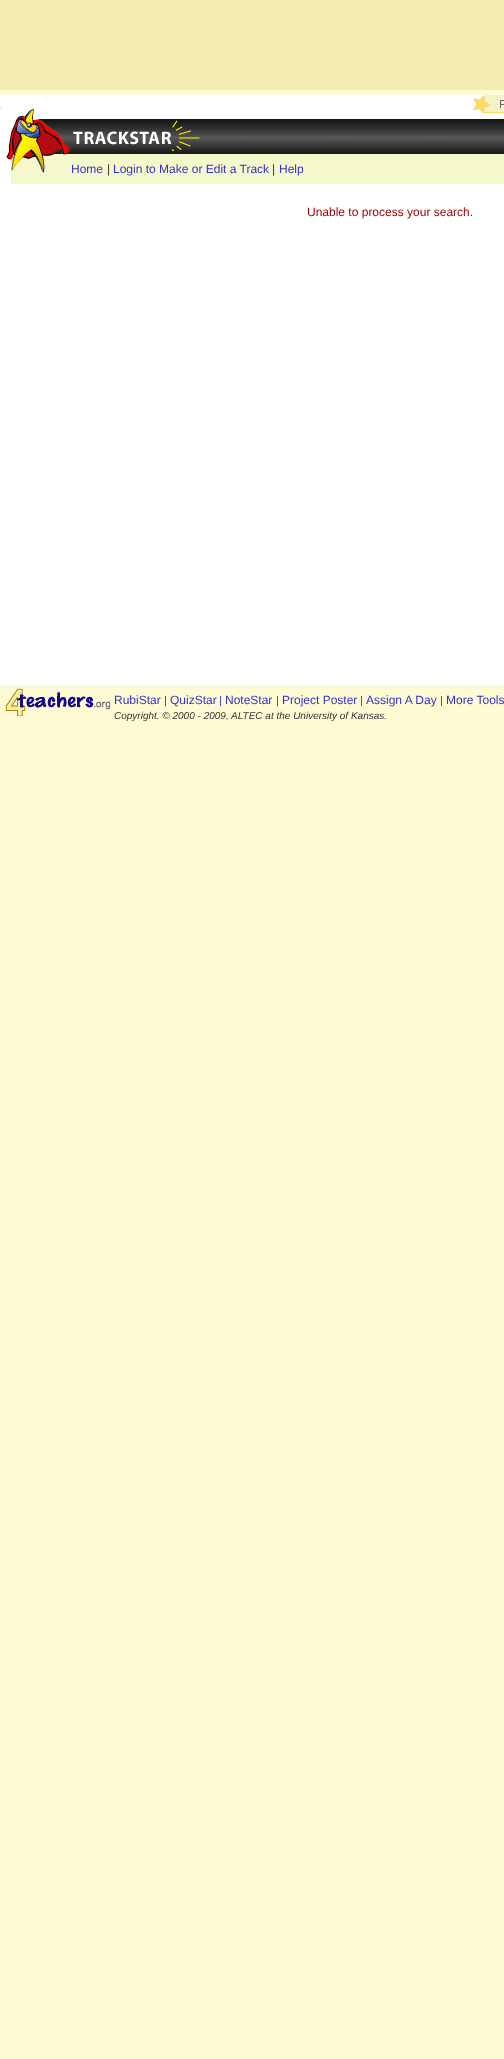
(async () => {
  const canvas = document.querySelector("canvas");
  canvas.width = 504;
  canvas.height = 2059;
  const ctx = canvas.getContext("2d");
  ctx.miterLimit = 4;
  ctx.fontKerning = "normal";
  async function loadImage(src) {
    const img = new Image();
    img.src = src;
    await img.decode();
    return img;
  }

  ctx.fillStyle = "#f5ecb2";
  ctx.fillRect(0, 0, 504, 2059);
  ctx.fillStyle = "#fefbd4";
  ctx.fillRect(0, 90, 504, 1969);
  ctx.fillStyle = "#ffffff";
  ctx.fillRect(0, 95, 504, 590);
  ctx.drawImage(await loadImage("img/1.png"), 0, 107, 504, 77);
  ctx.drawImage(await loadImage("img/2.png"), 473, 95, 31, 18);
  ctx.drawImage(await loadImage("img/3.png"), 5, 688, 105, 28);
  ctx.font = "12px Liberation Sans";
  ctx.fillStyle = "#3333cc";
  ctx.fillText("Home", 71, 173);
  ctx.fillStyle = "#333333";
  ctx.fillText("|", 107, 173);
  ctx.fillStyle = "#3333cc";
  ctx.fillText("Login to Make or Edit a Track", 113, 173);
  ctx.fillStyle = "#333333";
  ctx.fillText("|", 272, 173);
  ctx.fillStyle = "#3333cc";
  ctx.fillText("Help", 279, 173);
  ctx.fillStyle = "#990000";
  ctx.fillText("Unable to process your search.", 307, 216);
  ctx.fillStyle = "#3333cc";
  ctx.fillText("RubiStar", 114, 704);
  ctx.font = "11px Liberation Sans";
  ctx.fillText("|", 164, 704);
  ctx.font = "12px Liberation Sans";
  ctx.fillText("QuizStar", 170, 704);
  ctx.font = "11px Liberation Sans";
  ctx.fillText("|", 219, 704);
  ctx.font = "12px Liberation Sans";
  ctx.fillText("NoteStar", 225, 704);
  ctx.font = "11px Liberation Sans";
  ctx.fillText("|", 276, 704);
  ctx.font = "12px Liberation Sans";
  ctx.fillText("Project Poster", 282, 704);
  ctx.font = "11px Liberation Sans";
  ctx.fillText("|", 360, 704);
  ctx.font = "12px Liberation Sans";
  ctx.fillText("Assign A Day", 366, 704);
  ctx.font = "11px Liberation Sans";
  ctx.fillText("|", 440, 704);
  ctx.font = "12px Liberation Sans";
  ctx.fillText("More Tools", 446, 704);
  ctx.font = "italic 10px Liberation Sans";
  ctx.fillStyle = "#333333";
  ctx.fillText("Copyright. © 2000 - 2009, ALTEC at the University of Kansas.", 114, 719);
})();
